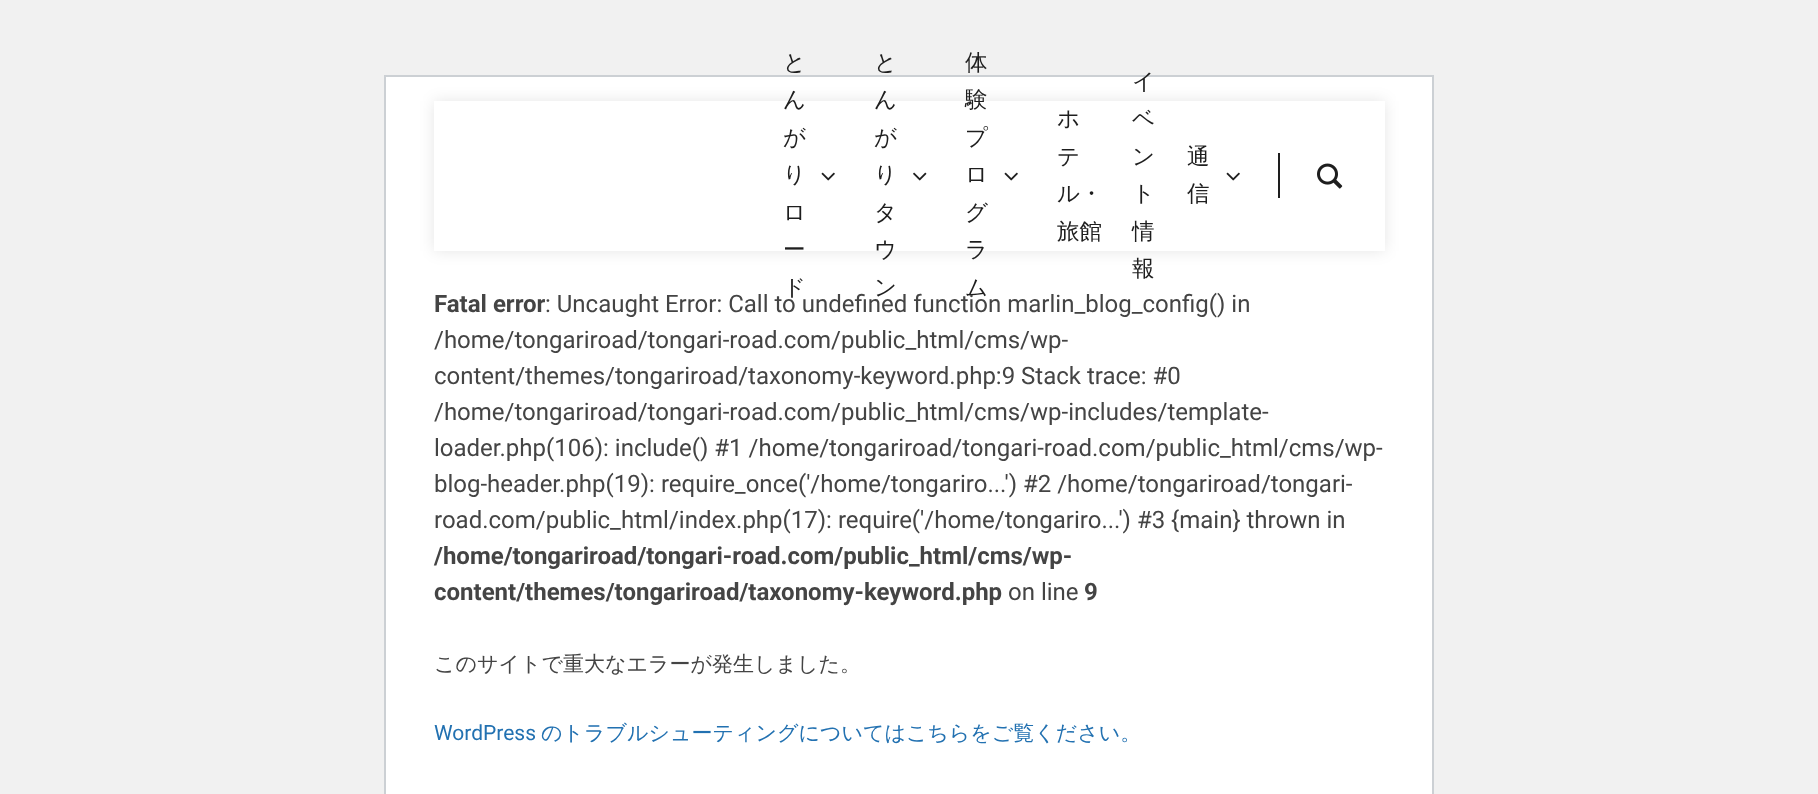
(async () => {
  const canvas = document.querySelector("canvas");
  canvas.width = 1818;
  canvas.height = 794;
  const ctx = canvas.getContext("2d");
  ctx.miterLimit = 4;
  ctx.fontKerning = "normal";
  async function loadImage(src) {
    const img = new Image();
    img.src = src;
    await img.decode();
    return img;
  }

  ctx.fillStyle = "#f1f1f1";
  ctx.fillRect(0, 0, 1818, 794);
  ctx.fillStyle = "#ffffff";
  ctx.beginPath();
  ctx.rect(385, 76, 1048, 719);
  ctx.fill();
  ctx.strokeStyle = "#ccd0d4";
  ctx.lineWidth = 2;
  ctx.stroke();
  ctx.fillStyle = "rgba(0, 0, 0, 0.1)";
  ctx.filter = "blur(7.5px)";
  ctx.beginPath();
  ctx.rect(434, 101, 951, 150);
  ctx.fill();
  ctx.filter = "none";
  ctx.fillStyle = "#ffffff";
  ctx.fillRect(434, 101, 951, 150);
  ctx.drawImage(await loadImage("img/1.png"), 821, 172, 14, 9);
  ctx.drawImage(await loadImage("img/2.png"), 913, 172, 14, 9);
  ctx.drawImage(await loadImage("img/1.png"), 1004, 172, 14, 9);
  ctx.drawImage(await loadImage("img/1.png"), 1226, 172, 14, 9);
  ctx.fillStyle = "#1e1e1e";
  ctx.fillRect(1278, 153, 2, 45);
  ctx.drawImage(await loadImage("img/3.png"), 1317, 163, 26, 26);
  ctx.font = "500 22.5px WenQuanYi Zen Hei";
  for (const [text, x, y] of [
    ["と", 783, 70],
    ["ん", 783, 107],
    ["が", 783, 145],
    ["り", 783, 182],
    ["ロ", 783, 220],
    ["ー", 783, 257],
    ["ド", 783, 295],
    ["と", 874, 70],
    ["ん", 874, 107],
    ["が", 874, 145],
    ["り", 874, 182],
    ["タ", 874, 220],
    ["ウ", 874, 257],
    ["ン", 874, 295],
    ["体", 965, 70],
    ["験", 965, 107],
    ["プ", 965, 145],
    ["ロ", 965, 182],
    ["グ", 965, 220],
    ["ラ", 965, 257],
    ["ム", 965, 295],
    ["ホ", 1057, 126],
    ["テ", 1057, 164],
    ["ル・", 1057, 201],
    ["旅館", 1057, 239],
    ["イ", 1132, 89],
    ["ベ", 1132, 126],
    ["ン", 1132, 164],
    ["ト", 1132, 201],
    ["情", 1132, 239],
    ["報", 1132, 276],
    ["通", 1187, 164],
    ["信", 1187, 201],
  ]) {
    ctx.fillText(text, x, y);
  }
  ctx.font = "bold 24px Roboto";
  ctx.fillStyle = "#444444";
  ctx.fillText("Fatal error", 434, 312);
  ctx.font = "24px Roboto";
  for (const [text, x, y] of [
    [": Uncaught Error: Call to undefined function marlin_blog_config() in", 545, 312],
    ["/home/tongariroad/tongari-road.com/public_html/cms/wp-", 434, 348],
    ["content/themes/tongariroad/taxonomy-keyword.php:9 Stack trace: #0", 434, 384],
    ["/home/tongariroad/tongari-road.com/public_html/cms/wp-includes/template-", 434, 420],
    ["loader.php(106): include() #1 /home/tongariroad/tongari-road.com/public_html/cms/wp-", 434, 456],
    ["blog-header.php(19): require_once('/home/tongariro...') #2 /home/tongariroad/tongari-", 434, 492],
    ["road.com/public_html/index.php(17): require('/home/tongariro...') #3 {main} thrown in", 434, 528],
  ]) {
    ctx.fillText(text, x, y);
  }
  ctx.font = "bold 24px Roboto";
  ctx.fillText("/home/tongariroad/tongari-road.com/public_html/cms/wp-", 434, 564);
  ctx.fillText("content/themes/tongariroad/taxonomy-keyword.php", 434, 600);
  ctx.font = "24px Roboto";
  ctx.fillText("on line", 1008, 600);
  ctx.font = "bold 24px Roboto";
  ctx.fillText("9", 1084, 600);
  ctx.font = "500 21px WenQuanYi Zen Hei";
  ctx.fillText("このサイトで重大なエラーが発生しました。", 434, 671);
  ctx.font = "21px Roboto";
  ctx.fillStyle = "#2271b1";
  ctx.fillText("WordPress", 434, 740);
  ctx.font = "500 21px WenQuanYi Zen Hei";
  ctx.fillText("のトラブルシューティングについてはこちらをご覧ください。", 541, 740);
})();
